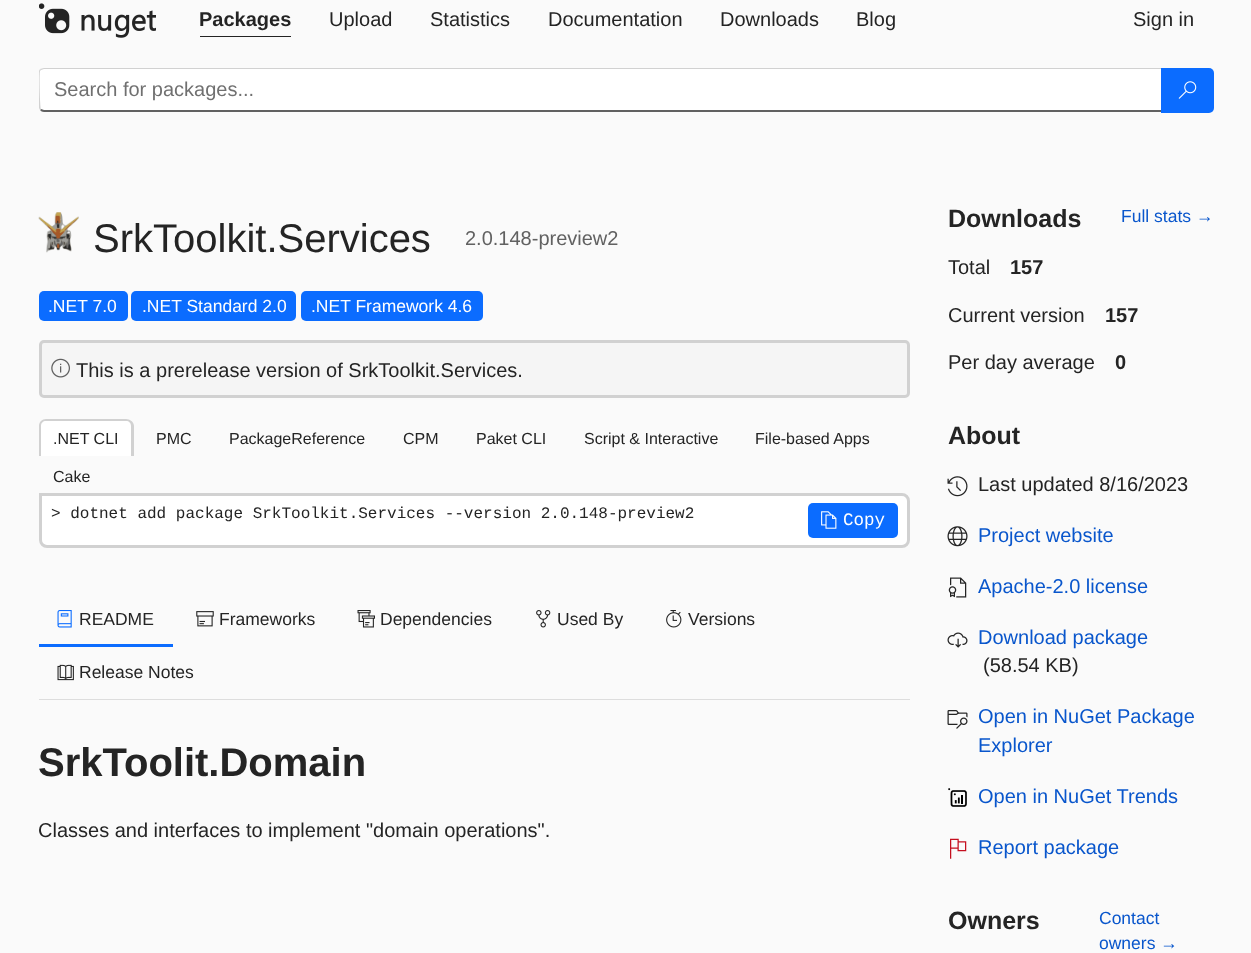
(async () => {
  const canvas = document.querySelector("canvas");
  canvas.width = 1251;
  canvas.height = 953;
  const ctx = canvas.getContext("2d");
  ctx.miterLimit = 4;
  ctx.fontKerning = "normal";
  async function loadImage(src) {
    const img = new Image();
    img.src = src;
    await img.decode();
    return img;
  }
  let path;

  ctx.fillStyle = "#fafafa";
  ctx.fillRect(0, 0, 1251, 953);
  ctx.drawImage(await loadImage("img/1.png"), 39, 3, 117, 35);
  ctx.fillStyle = "#242424";
  ctx.fillRect(200, 36, 91, 1);
  ctx.fillStyle = "#ffffff";
  path = new Path2D("M44 69H1161V110H44C42 110 40 109 40 108V72C40 70 42 69 44 69Z");
  ctx.fill(path);
  ctx.fillStyle = "#d1d1d1";
  path = new Path2D("M44 68L40 69L41 70L44 69H1161L1162 68Z");
  ctx.fill(path);
  ctx.fillStyle = "#616161";
  path = new Path2D("M1162 112H44C42 112 41 111 40 110L41 109L44 110H1161Z");
  ctx.fill(path);
  ctx.fillStyle = "#d1d1d1";
  path = new Path2D("M40 69L39 71V108L40 110L41 109C40 108 39 74 40 71L41 70Z");
  ctx.fill(path);
  ctx.fillStyle = "#0b6cff";
  ctx.beginPath();
  ctx.roundRect(1161, 68, 53, 45, [0, 5, 5, 0]);
  ctx.fill();
  ctx.drawImage(await loadImage("img/2.png"), 1178, 81, 19, 18);
  ctx.drawImage(await loadImage("img/3.png"), 38, 212, 41, 41);
  ctx.beginPath();
  ctx.roundRect(39, 291, 89, 30, 5);
  ctx.fill();
  ctx.beginPath();
  ctx.roundRect(131, 291, 165, 30, 5);
  ctx.fill();
  ctx.beginPath();
  ctx.roundRect(301, 291, 182, 30, 5);
  ctx.fill();
  ctx.fillStyle = "#f5f5f5";
  ctx.beginPath();
  ctx.roundRect(40.5, 341.5, 868, 55, 3.5);
  ctx.fill();
  ctx.strokeStyle = "#d1d1d1";
  ctx.lineWidth = 3;
  ctx.stroke();
  ctx.drawImage(await loadImage("img/4.png"), 51, 358, 19, 20);
  ctx.fillStyle = "#ffffff";
  ctx.beginPath();
  ctx.roundRect(39, 419, 95, 37, [8, 8, 0, 0]);
  ctx.fill();
  ctx.fillStyle = "#d1d1d1";
  path = new Path2D("M46 419H126C130 419 134 422 134 426V456H39V426C39 422 42 419 46 419ZM46 421H126C129 421 131 423 131 426V456H41V426C41 423 43 421 46 421Z");
  ctx.fill(path, "evenodd");
  ctx.fillStyle = "#ffffff";
  ctx.beginPath();
  ctx.roundRect(40.5, 494.5, 868, 52, [0, 6.5, 6.5, 6.5]);
  ctx.fill();
  ctx.stroke();
  ctx.fillStyle = "#0b6cff";
  ctx.beginPath();
  ctx.roundRect(808, 503, 90, 35, 5);
  ctx.fill();
  ctx.drawImage(await loadImage("img/5.png"), 821, 511, 16, 18);
  ctx.fillStyle = "#dddddd";
  ctx.fillRect(39, 699, 871, 1);
  ctx.fillStyle = "#0b6cff";
  ctx.fillRect(39, 644, 134, 3);
  ctx.drawImage(await loadImage("img/6.png"), 57, 610, 15, 18);
  ctx.drawImage(await loadImage("img/7.png"), 196, 611, 18, 16);
  ctx.drawImage(await loadImage("img/8.png"), 357, 610, 18, 18);
  ctx.drawImage(await loadImage("img/9.png"), 536, 610, 15, 18);
  ctx.drawImage(await loadImage("img/10.png"), 666, 610, 16, 18);
  ctx.drawImage(await loadImage("img/11.png"), 57, 664, 17, 17);
  ctx.drawImage(await loadImage("img/12.png"), 947, 476, 21, 21);
  ctx.drawImage(await loadImage("img/13.png"), 947, 526, 21, 21);
  ctx.drawImage(await loadImage("img/14.png"), 948, 577, 19, 21);
  ctx.drawImage(await loadImage("img/15.png"), 947, 632, 21, 16);
  ctx.drawImage(await loadImage("img/16.png"), 947, 710, 21, 19);
  ctx.drawImage(await loadImage("img/17.png"), 948, 788, 19, 19);
  ctx.drawImage(await loadImage("img/18.png"), 950, 838, 17, 21);
  ctx.font = "bold 20px Liberation Sans";
  ctx.fillStyle = "#242424";
  ctx.fillText("Packages", 199, 26);
  ctx.font = "20px Liberation Sans";
  for (const [text, x, y] of [
    ["Upload", 329, 26],
    ["Statistics", 430, 26],
    ["Documentation", 548, 26],
    ["Downloads", 720, 26],
    ["Blog", 856, 26],
    ["Sign in", 1133, 26],
  ]) {
    ctx.fillText(text, x, y);
  }
  ctx.fillStyle = "#707070";
  ctx.fillText("Search for packages...", 54, 96);
  ctx.font = "40px Liberation Sans";
  ctx.fillStyle = "#242424";
  ctx.fillText("SrkToolkit.Services", 93, 252);
  ctx.font = "20px Liberation Sans";
  ctx.fillStyle = "#616161";
  ctx.fillText("2.0.148-preview2", 465, 245);
  ctx.font = "17.5px Liberation Sans";
  ctx.fillStyle = "#ffffff";
  for (const [text, x, y] of [
    [".NET 7.0", 48, 312],
    [".NET Standard 2.0", 142, 312],
    [".NET Framework 4.6", 311, 312],
  ]) {
    ctx.fillText(text, x, y);
  }
  ctx.font = "20px Liberation Sans";
  ctx.fillStyle = "#242424";
  ctx.fillText("This is a prerelease version of SrkToolkit.Services.", 76, 377);
  ctx.font = "16px Liberation Sans";
  for (const [text, x, y] of [
    [".NET CLI", 53, 444],
    ["PMC", 156, 444],
    ["PackageReference", 229, 444],
    ["CPM", 403, 444],
    ["Paket CLI", 476, 444],
    ["Script & Interactive", 584, 444],
    ["File-based Apps", 755, 444],
    ["Cake", 53, 482],
  ]) {
    ctx.fillText(text, x, y);
  }
  ctx.font = "16px Liberation Mono";
  ctx.fillText("> dotnet add package SrkToolkit.Services --version 2.0.148-preview2", 51, 518);
  ctx.font = "17.5px Liberation Mono";
  ctx.fillStyle = "#ffffff";
  ctx.fillText("Copy", 843, 525);
  ctx.font = "17.5px Liberation Sans";
  ctx.fillStyle = "#242424";
  for (const [text, x, y] of [
    ["README", 79, 625],
    ["Frameworks", 219, 625],
    ["Dependencies", 380, 625],
    ["Used By", 557, 625],
    ["Versions", 688, 625],
    ["Release Notes", 79, 678],
  ]) {
    ctx.fillText(text, x, y);
  }
  ctx.font = "bold 40px Liberation Sans";
  ctx.fillText("SrkToolit.Domain", 38, 776);
  ctx.font = "20px Liberation Sans";
  ctx.fillText("Classes and interfaces to implement \"domain operations\".", 38, 837);
  ctx.font = "bold 25px Liberation Sans";
  ctx.fillText("Downloads", 948, 227);
  ctx.font = "17.5px Liberation Sans";
  ctx.fillStyle = "#0956cc";
  ctx.fillText("Full stats →", 1121, 222);
  ctx.font = "20px Liberation Sans";
  ctx.fillStyle = "#242424";
  ctx.fillText("Total", 948, 274);
  ctx.font = "bold 20px Liberation Sans";
  ctx.fillText("157", 1010, 274);
  ctx.font = "20px Liberation Sans";
  ctx.fillText("Current version", 948, 322);
  ctx.font = "bold 20px Liberation Sans";
  ctx.fillText("157", 1105, 322);
  ctx.font = "20px Liberation Sans";
  ctx.fillText("Per day average", 948, 369);
  ctx.font = "bold 20px Liberation Sans";
  ctx.fillText("0", 1115, 369);
  ctx.font = "bold 25px Liberation Sans";
  ctx.fillText("About", 948, 444);
  ctx.font = "20px Liberation Sans";
  ctx.fillText("Last updated 8/16/2023", 978, 491);
  ctx.fillStyle = "#0956cc";
  for (const [text, x, y] of [
    ["Project website", 978, 542],
    ["Apache-2.0 license", 978, 593],
    ["Download package", 978, 644],
  ]) {
    ctx.fillText(text, x, y);
  }
  ctx.fillStyle = "#242424";
  ctx.fillText("(58.54 KB)", 983, 672);
  ctx.fillStyle = "#0956cc";
  for (const [text, x, y] of [
    ["Open in NuGet Package", 978, 723],
    ["Explorer", 978, 752],
    ["Open in NuGet Trends", 978, 803],
    ["Report package", 978, 854],
  ]) {
    ctx.fillText(text, x, y);
  }
  ctx.font = "bold 25px Liberation Sans";
  ctx.fillStyle = "#242424";
  ctx.fillText("Owners", 948, 929);
  ctx.font = "17.5px Liberation Sans";
  ctx.fillStyle = "#0956cc";
  ctx.fillText("Contact", 1099, 924);
  ctx.fillText("owners →", 1099, 949);
})();
